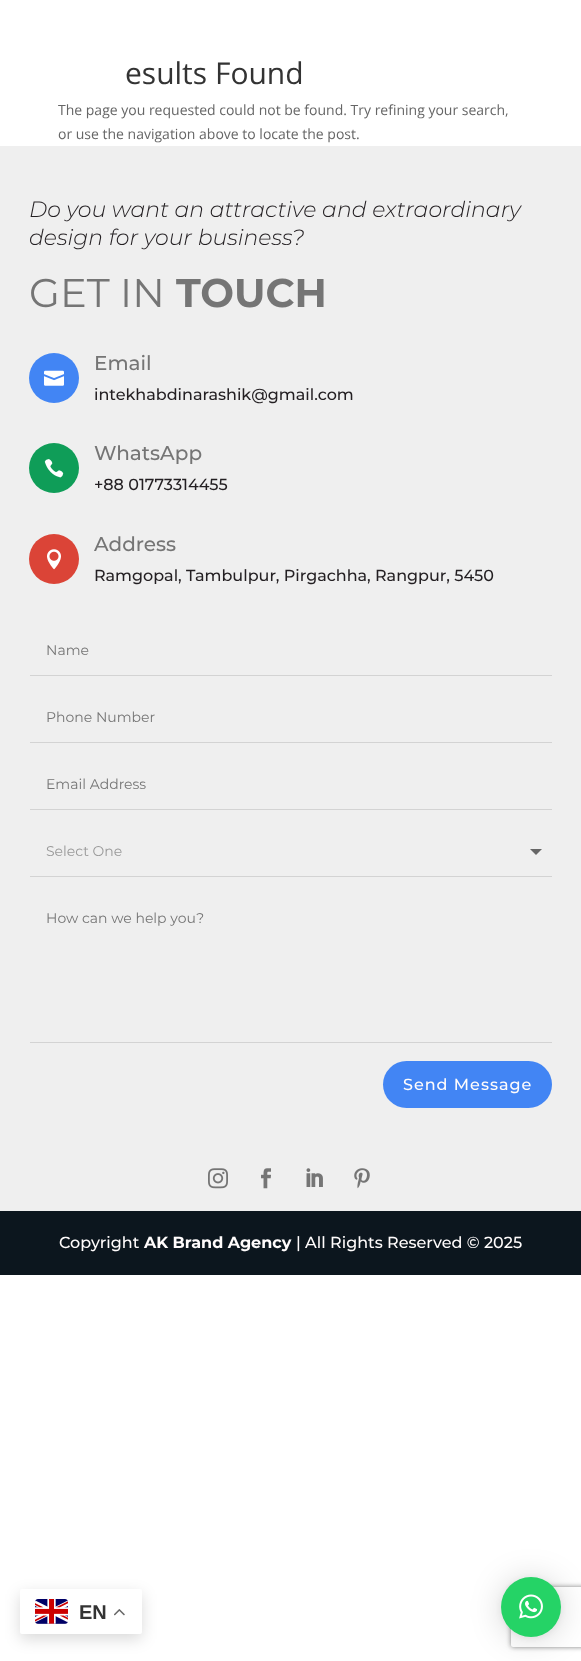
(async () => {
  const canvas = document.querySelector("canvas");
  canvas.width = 581;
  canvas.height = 1661;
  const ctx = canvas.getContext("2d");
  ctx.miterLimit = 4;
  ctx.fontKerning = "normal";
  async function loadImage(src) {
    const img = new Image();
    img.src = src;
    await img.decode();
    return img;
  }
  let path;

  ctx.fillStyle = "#ffffff";
  ctx.fillRect(0, 0, 581, 1661);
  ctx.fillStyle = "#efefef";
  ctx.fillRect(0, 146, 581, 1065);
  ctx.fillStyle = "#4285f4";
  ctx.beginPath();
  ctx.arc(54, 378, 25, 0, Math.PI * 2);
  ctx.fill();
  ctx.drawImage(await loadImage("img/1.png"), 44, 370, 20, 16);
  ctx.fillStyle = "#0f9d58";
  ctx.beginPath();
  ctx.arc(54, 468, 25, 0, Math.PI * 2);
  ctx.fill();
  ctx.drawImage(await loadImage("img/2.png"), 44, 459, 20, 19);
  ctx.fillStyle = "#db4437";
  ctx.beginPath();
  ctx.arc(54, 559, 25, 0, Math.PI * 2);
  ctx.fill();
  ctx.drawImage(await loadImage("img/3.png"), 47, 549, 14, 21);
  for (const [x, y, w, h, color] of [
    [30, 675, 522, 1, "#d3d3d3"],
    [30, 742, 522, 1, "#d3d3d3"],
    [30, 809, 522, 1, "#d3d3d3"],
    [30, 876, 522, 1, "#d3d3d3"],
  ]) {
    ctx.fillStyle = color;
    ctx.fillRect(x, y, w, h);
  }
  ctx.fillStyle = "#666666";
  path = new Path2D("M530 849H542L536 855Z");
  ctx.fill(path);
  ctx.fillStyle = "#d3d3d3";
  ctx.fillRect(30, 1042, 522, 1);
  ctx.fillStyle = "#4285f4";
  ctx.beginPath();
  ctx.roundRect(383, 1061, 169, 47, 23.5);
  ctx.fill();
  ctx.drawImage(await loadImage("img/4.png"), 208, 1168, 20, 21);
  ctx.drawImage(await loadImage("img/5.png"), 261, 1168, 10, 21);
  ctx.drawImage(await loadImage("img/6.png"), 306, 1168, 17, 19);
  ctx.drawImage(await loadImage("img/7.png"), 354, 1168, 16, 21);
  ctx.fillStyle = "#0c161e";
  ctx.fillRect(0, 1211, 581, 64);
  ctx.fillStyle = "rgba(0, 0, 0, 0.16)";
  ctx.filter = "blur(16px)";
  ctx.beginPath();
  ctx.roundRect(501, 1579, 60, 60, 30);
  ctx.fill();
  ctx.filter = "none";
  ctx.fillStyle = "rgba(0, 0, 0, 0.06)";
  ctx.filter = "blur(3px)";
  ctx.beginPath();
  ctx.roundRect(501, 1578, 60, 60, 30);
  ctx.fill();
  ctx.filter = "none";
  ctx.save();
  path = new Path2D("M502 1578H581V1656H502ZM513 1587H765C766 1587 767 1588 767 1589V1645C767 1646 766 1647 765 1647H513C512 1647 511 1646 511 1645V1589C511 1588 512 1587 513 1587Z");
  ctx.clip(path, "evenodd");
  ctx.fillStyle = "#808080";
  ctx.filter = "blur(2.5px)";
  ctx.beginPath();
  ctx.roundRect(511, 1587, 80, 60, 2);
  ctx.fill();
  ctx.filter = "none";
  ctx.restore();
  ctx.fillStyle = "#25d366";
  ctx.beginPath();
  ctx.arc(531, 1607, 30, 0, Math.PI * 2);
  ctx.fill();
  ctx.drawImage(await loadImage("img/8.png"), 519, 1594, 24, 25);
  ctx.fillStyle = "rgba(0, 0, 0, 0.15)";
  ctx.filter = "blur(7.5px)";
  ctx.beginPath();
  ctx.roundRect(20, 1594, 122, 45, 2);
  ctx.fill();
  ctx.filter = "none";
  ctx.fillStyle = "#ffffff";
  ctx.beginPath();
  ctx.roundRect(20, 1589, 122, 45, 2);
  ctx.fill();
  ctx.drawImage(await loadImage("img/9.png"), 35, 1599, 33, 25);
  ctx.drawImage(await loadImage("img/10.png"), 114, 1609, 11, 7);
  ctx.font = "30px Open Sans";
  ctx.fillStyle = "#333333";
  ctx.fillText("esults Found", 125, 84);
  ctx.font = "14px Open Sans";
  ctx.fillStyle = "#666666";
  ctx.fillText("The page you requested could not be found. Try refining your search,", 58, 115);
  ctx.fillText("or use the navigation above to locate the post.", 58, 139);
  ctx.font = "italic 300 22px Montserrat";
  ctx.fillStyle = "#231f22";
  ctx.fillText("Do you want an attractive and extraordinary", 29, 217);
  ctx.fillText("design for your business?", 29, 245);
  ctx.font = "40px Montserrat";
  ctx.fillStyle = "#757575";
  ctx.fillText("GET IN", 29, 307);
  ctx.font = "bold 40px Montserrat";
  ctx.fillText("TOUCH", 176, 307);
  ctx.font = "500 20px Montserrat";
  ctx.fillText("Email", 94, 370);
  ctx.font = "500 16px Montserrat";
  ctx.fillStyle = "#231f22";
  ctx.fillText("intekhabdinarashik@gmail.com", 94, 400);
  ctx.font = "500 20px Montserrat";
  ctx.fillStyle = "#757575";
  ctx.fillText("WhatsApp", 94, 460);
  ctx.font = "500 16px Montserrat";
  ctx.fillStyle = "#231f22";
  ctx.fillText("+88 01773314455", 94, 490);
  ctx.font = "500 20px Montserrat";
  ctx.fillStyle = "#757575";
  ctx.fillText("Address", 94, 551);
  ctx.font = "500 16px Montserrat";
  ctx.fillStyle = "#231f22";
  ctx.fillText("Ramgopal, Tambulpur, Pirgachha, Rangpur, 5450", 94, 581);
  ctx.font = "14px Montserrat";
  ctx.fillStyle = "#757575";
  for (const [text, x, y] of [
    ["Name", 46, 655],
    ["Phone Number", 46, 722],
    ["Email Address", 46, 789],
  ]) {
    ctx.fillText(text, x, y);
  }
  ctx.fillStyle = "#999999";
  ctx.fillText("Select One", 46, 856);
  ctx.fillStyle = "#757575";
  ctx.fillText("How can we help you?", 46, 923);
  ctx.letterSpacing = "1px";
  ctx.font = "500 16px Montserrat";
  ctx.fillStyle = "#fffcfc";
  ctx.fillText("Send Message", 403, 1090);
  ctx.letterSpacing = "0px";
  ctx.fillText("Copyright", 59, 1248);
  ctx.font = "bold 16px Montserrat";
  ctx.fillText("AK Brand Agency", 144, 1248);
  ctx.font = "500 16px Montserrat";
  ctx.fillText("| All Rights Reserved © 2025", 296, 1248);
  ctx.font = "bold 20px Liberation Sans";
  ctx.fillStyle = "#333333";
  ctx.fillText("EN", 79, 1619);
})();
